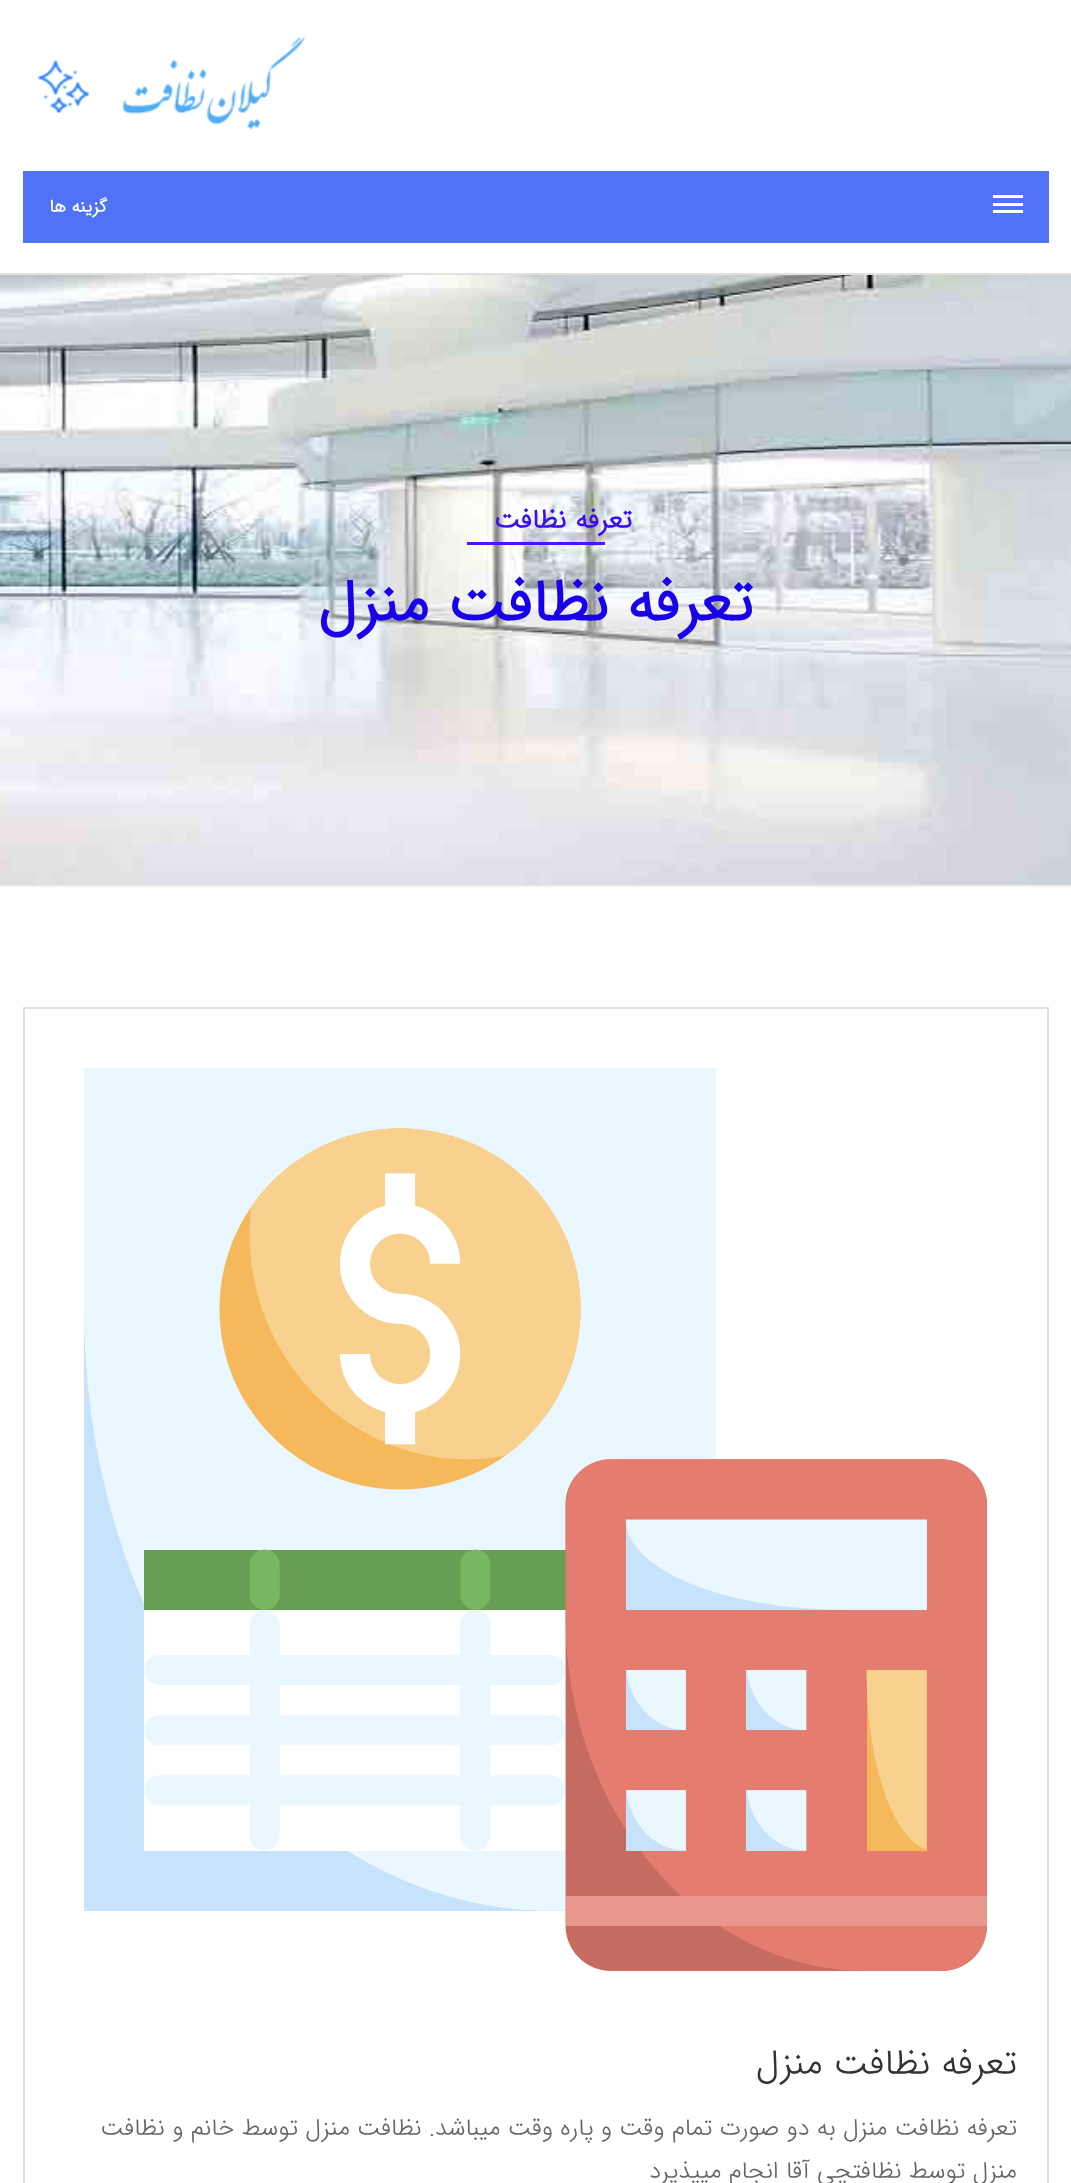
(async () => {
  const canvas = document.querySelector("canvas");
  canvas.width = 1071;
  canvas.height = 2183;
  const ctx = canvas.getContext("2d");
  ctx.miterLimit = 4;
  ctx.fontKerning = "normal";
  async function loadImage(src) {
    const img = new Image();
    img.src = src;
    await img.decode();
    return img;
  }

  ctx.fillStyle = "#ffffff";
  ctx.fillRect(0, 0, 1071, 2183);
  ctx.fillStyle = "#e1e0dd";
  ctx.fillRect(0, 273, 1071, 2);
  ctx.drawImage(await loadImage("img/1.png"), 37, 36, 268, 94);
  for (const [x, y, w, h, color] of [
    [23, 171, 1026, 72, "#5072f7"],
    [993, 195, 30, 3, "#ffffff"],
    [993, 210, 30, 3, "#ffffff"],
    [993, 203, 30, 3, "#ffffff"],
  ]) {
    ctx.fillStyle = color;
    ctx.fillRect(x, y, w, h);
  }
  ctx.drawImage(await loadImage("img/2.png"), 0, 275, 1071, 610);
  ctx.fillStyle = "#eeeeee";
  ctx.fillRect(0, 885, 1071, 2);
  ctx.fillStyle = "#4d13ff";
  ctx.fillRect(467, 542, 138, 3);
  ctx.strokeStyle = "#e1e0dd";
  ctx.lineWidth = 2;
  ctx.strokeRect(24, 1008, 1024, 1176);
  ctx.drawImage(await loadImage("img/3.png"), 84, 1068, 903, 903);
  ctx.direction = "rtl";
  ctx.font = "bold 18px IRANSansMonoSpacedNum";
  ctx.fillStyle = "#ffffff";
  ctx.fillText("گزینه ها", 107, 212);
  ctx.letterSpacing = "2.75px";
  ctx.wordSpacing = "-2px";
  ctx.font = "bold 27px IRANSansMonoSpacedNum";
  ctx.fillStyle = "#3c10ea";
  ctx.fillText("تعرفه نظافت", 632, 528);
  ctx.letterSpacing = "0px";
  ctx.wordSpacing = "0px";
  ctx.font = "bold 60px IRANSansMonoSpacedNum";
  ctx.fillStyle = "#1900ea";
  ctx.fillText("تعرفه نظافت منزل", 753, 621);
  ctx.font = "300 36px IRANSansMonoSpacedNum";
  ctx.fillStyle = "#333333";
  ctx.fillText("تعرفه نظافت منزل", 1017, 2074);
  ctx.font = "300 24px IRANSansMonoSpacedNum";
  ctx.fillStyle = "#666666";
  ctx.fillText("تعرفه نظافت منزل به دو صورت تمام وقت و پاره وقت میباشد. نظافت منزل توسط خانم و نظافت", 1017, 2135);
  ctx.fillText("منزل توسط نظافتچی آقا انجام میپذیرد", 1017, 2178);
})();
